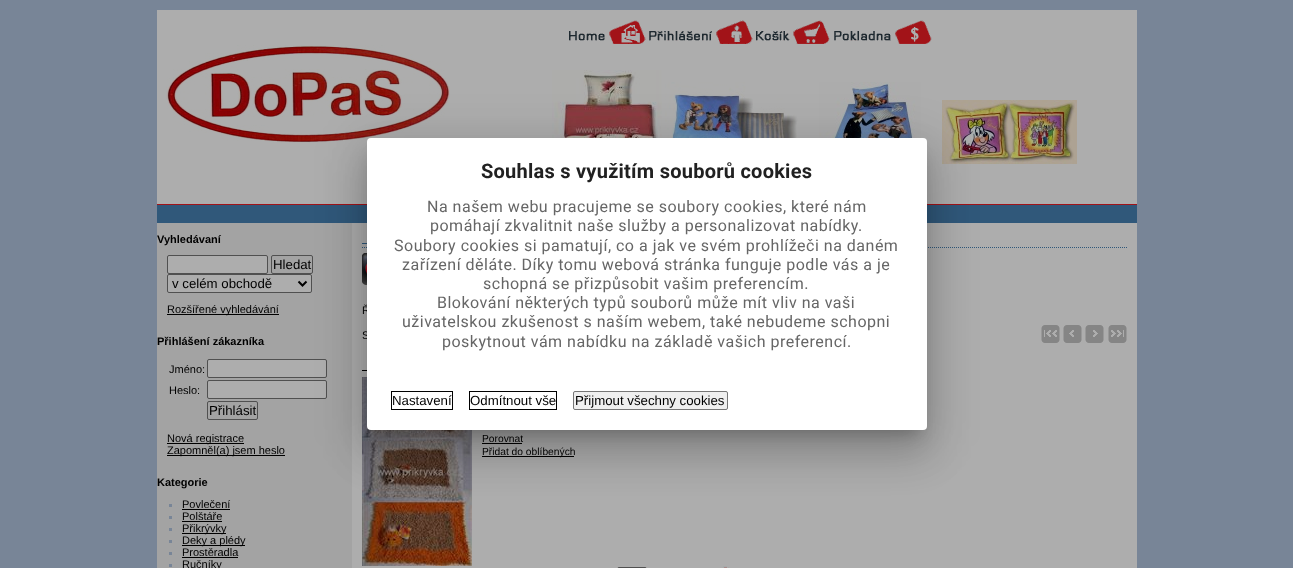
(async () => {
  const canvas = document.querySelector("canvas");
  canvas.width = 1293;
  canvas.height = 568;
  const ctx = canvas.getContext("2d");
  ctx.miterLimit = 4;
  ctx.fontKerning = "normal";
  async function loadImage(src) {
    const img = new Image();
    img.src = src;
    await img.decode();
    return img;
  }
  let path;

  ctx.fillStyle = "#788597";
  ctx.fillRect(0, 0, 1293, 568);
  ctx.fillStyle = "#adadad";
  ctx.fillRect(157, 10, 980, 558);
  ctx.drawImage(await loadImage("img/1.png"), 166, 45, 284, 98);
  ctx.drawImage(await loadImage("img/2.png"), 569, 20, 77, 24);
  ctx.drawImage(await loadImage("img/3.png"), 649, 20, 104, 24);
  ctx.drawImage(await loadImage("img/4.png"), 756, 20, 74, 24);
  ctx.drawImage(await loadImage("img/5.png"), 834, 20, 98, 24);
  ctx.drawImage(await loadImage("img/6.png"), 552, 70, 110, 68);
  ctx.drawImage(await loadImage("img/7.png"), 665, 82, 135, 56);
  ctx.drawImage(await loadImage("img/8.png"), 819, 82, 102, 56);
  ctx.drawImage(await loadImage("img/9.png"), 942, 100, 135, 64);
  for (const [x, y, w, h, color] of [
    [157, 205, 980, 18, "#30587a"],
    [157, 204, 980, 1, "#a21318"],
    [157, 223, 195, 345, "#a3a3a3"],
  ]) {
    ctx.fillStyle = color;
    ctx.fillRect(x, y, w, h);
  }
  ctx.fillStyle = "#adadad";
  ctx.beginPath();
  ctx.roundRect(167.5, 255.5, 100, 18, 1.5);
  ctx.fill();
  ctx.strokeStyle = "#505050";
  ctx.stroke();
  ctx.beginPath();
  ctx.roundRect(271.5, 255.5, 41, 18, 1.5);
  ctx.stroke();
  ctx.beginPath();
  ctx.roundRect(167.5, 274.5, 144, 18, 1.5);
  ctx.fill();
  ctx.stroke();
  path = new Path2D("M298.5 281.5L302.5 285.5L306.5 281.5");
  ctx.strokeStyle = "#000000";
  ctx.lineWidth = 2;
  ctx.stroke(path);
  ctx.fillStyle = "#000000";
  ctx.fillRect(167, 314, 112, 1);
  ctx.fillStyle = "#adadad";
  ctx.beginPath();
  ctx.roundRect(207.5, 359.5, 119, 18, 1.5);
  ctx.fill();
  ctx.strokeStyle = "#505050";
  ctx.lineWidth = 1;
  ctx.stroke();
  ctx.beginPath();
  ctx.roundRect(207.5, 380.5, 119, 18, 1.5);
  ctx.fill();
  ctx.stroke();
  ctx.beginPath();
  ctx.roundRect(207.5, 401.5, 50, 18, 1.5);
  ctx.stroke();
  for (const [x, y, w, h, color] of [
    [167, 443, 77, 1, "#000000"],
    [167, 455, 118, 1, "#000000"],
    [169, 504, 3, 3, "#788597"],
    [182, 509, 48, 1, "#000000"],
    [169, 516, 3, 3, "#788597"],
    [182, 521, 40, 1, "#000000"],
    [169, 528, 3, 3, "#788597"],
    [182, 533, 44, 1, "#000000"],
    [169, 540, 3, 3, "#788597"],
    [182, 545, 63, 1, "#000000"],
    [169, 552, 3, 3, "#788597"],
    [182, 557, 56, 1, "#000000"],
    [169, 564, 3, 3, "#788597"],
  ]) {
    ctx.fillStyle = color;
    ctx.fillRect(x, y, w, h);
  }
  path = new Path2D("M362 247.5H1127");
  ctx.strokeStyle = "#30587a";
  ctx.setLineDash([1, 1]);
  ctx.stroke(path);
  ctx.fillStyle = "#30587a";
  ctx.fillRect(362, 243, 5, 1);
  ctx.drawImage(await loadImage("img/10.png"), 362, 253, 5, 32);
  ctx.drawImage(await loadImage("img/11.png"), 1041, 325, 19, 18);
  ctx.drawImage(await loadImage("img/12.png"), 1063, 325, 19, 18);
  ctx.drawImage(await loadImage("img/13.png"), 1085, 325, 19, 18);
  ctx.drawImage(await loadImage("img/14.png"), 1108, 325, 19, 18);
  ctx.fillStyle = "#000000";
  ctx.fillRect(362, 370, 5, 1);
  ctx.drawImage(await loadImage("img/15.png"), 362, 377, 110, 189);
  ctx.fillRect(482, 443, 40, 1);
  ctx.fillRect(482, 456, 92, 1);
  ctx.beginPath();
  ctx.roundRect(617.5, 567.5, 29, 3, 1.5);
  ctx.strokeStyle = "#505050";
  ctx.setLineDash([]);
  ctx.stroke();
  ctx.drawImage(await loadImage("img/16.png"), 722, 566, 7, 2);
  ctx.fillStyle = "rgba(0, 0, 0, 0.12)";
  ctx.filter = "blur(23px)";
  ctx.beginPath();
  ctx.roundRect(359, 139, 576, 308, 12);
  ctx.fill();
  ctx.filter = "none";
  ctx.fillStyle = "rgba(0, 0, 0, 0.14)";
  ctx.filter = "blur(19px)";
  ctx.beginPath();
  ctx.roundRect(364, 159, 566, 298, 7);
  ctx.fill();
  ctx.filter = "none";
  ctx.fillStyle = "rgba(0, 0, 0, 0.2)";
  ctx.filter = "blur(7.5px)";
  ctx.beginPath();
  ctx.rect(374, 156, 546, 278);
  ctx.fill();
  ctx.filter = "none";
  ctx.font = "bold 11px Liberation Sans";
  ctx.fillStyle = "#000000";
  ctx.fillText("Vyhledávaní", 157, 243);
  ctx.font = "13.25px Liberation Sans";
  ctx.fillText("Hledat", 273, 269);
  ctx.fillText("v celém obchodě", 172, 288);
  ctx.font = "11px Liberation Sans";
  ctx.fillText("Rozšířené vyhledávání", 167, 313);
  ctx.font = "bold 11px Liberation Sans";
  ctx.fillText("Přihlášení zákazníka", 157, 345);
  ctx.font = "11px Liberation Sans";
  ctx.fillText("Jméno:", 169, 373);
  ctx.fillText("Heslo:", 169, 394);
  ctx.font = "13.25px Liberation Sans";
  ctx.fillText("Přihlásit", 209, 415);
  ctx.font = "11px Liberation Sans";
  ctx.fillText("Nová registrace", 167, 442);
  ctx.fillText("Zapomněl(a) jsem heslo", 167, 454);
  ctx.font = "bold 11px Liberation Sans";
  ctx.fillText("Kategorie", 157, 486);
  ctx.font = "11px Liberation Sans";
  for (const [text, x, y] of [
    ["Povlečení", 182, 508],
    ["Polštáře", 182, 520],
    ["Přikrývky", 182, 532],
    ["Deky a plédy", 182, 544],
    ["Prostěradla", 182, 556],
    ["Ručníky", 182, 568],
    ["Ř", 362, 314],
    ["S", 362, 339],
  ]) {
    ctx.fillText(text, x, y);
  }
  ctx.font = "10.25px Liberation Sans";
  ctx.fillText("Porovnat", 482, 442);
  ctx.fillText("Přidat do oblíbených", 482, 455);
  ctx.fillStyle = "#ffffff";
  ctx.beginPath();
  ctx.roundRect(367, 138, 560, 292, 4);
  ctx.fill();
  ctx.letterSpacing = "0.25px";
  ctx.font = "bold 20px Roboto";
  ctx.fillStyle = "#212121";
  ctx.fillText("Souhlas s využitím souborů cookies", 481, 178);
  ctx.letterSpacing = "0.5px";
  ctx.font = "16px Roboto";
  ctx.fillStyle = "#666666";
  for (const [text, x, y] of [
    ["Na našem webu pracujeme se soubory cookies, které nám", 427, 212],
    ["pomáhají zkvalitnit naše služby a personalizovat nabídky.", 430, 231],
    ["Soubory cookies si pamatují, co a jak ve svém prohlížeči na daném", 394, 251],
    ["zařízení děláte. Díky tomu webová stránka funguje podle vás a je", 402, 270],
    ["schopná se přizpůsobit vašim preferencím.", 483, 289],
    ["Blokování některých typů souborů může mít vliv na vaši", 437, 308],
    ["uživatelskou zkušenost s naším webem, také nebudeme schopni", 402, 327],
    ["poskytnout vám nabídku na základě vašich preferencí.", 442, 347],
  ]) {
    ctx.fillText(text, x, y);
  }
  ctx.strokeStyle = "#000000";
  ctx.strokeRect(391.5, 391.5, 61, 18);
  ctx.letterSpacing = "0px";
  ctx.font = "13.25px Liberation Sans";
  ctx.fillStyle = "#000000";
  ctx.fillText("Nastavení", 392, 405);
  ctx.strokeRect(469.5, 391.5, 87, 18);
  ctx.fillText("Odmítnout vše", 470, 405);
  ctx.fillStyle = "#efefef";
  ctx.beginPath();
  ctx.roundRect(573.5, 391.5, 154, 18, 1.5);
  ctx.fill();
  ctx.strokeStyle = "#767676";
  ctx.stroke();
  ctx.fillStyle = "#000000";
  ctx.fillText("Přijmout všechny cookies", 575, 405);
})();
